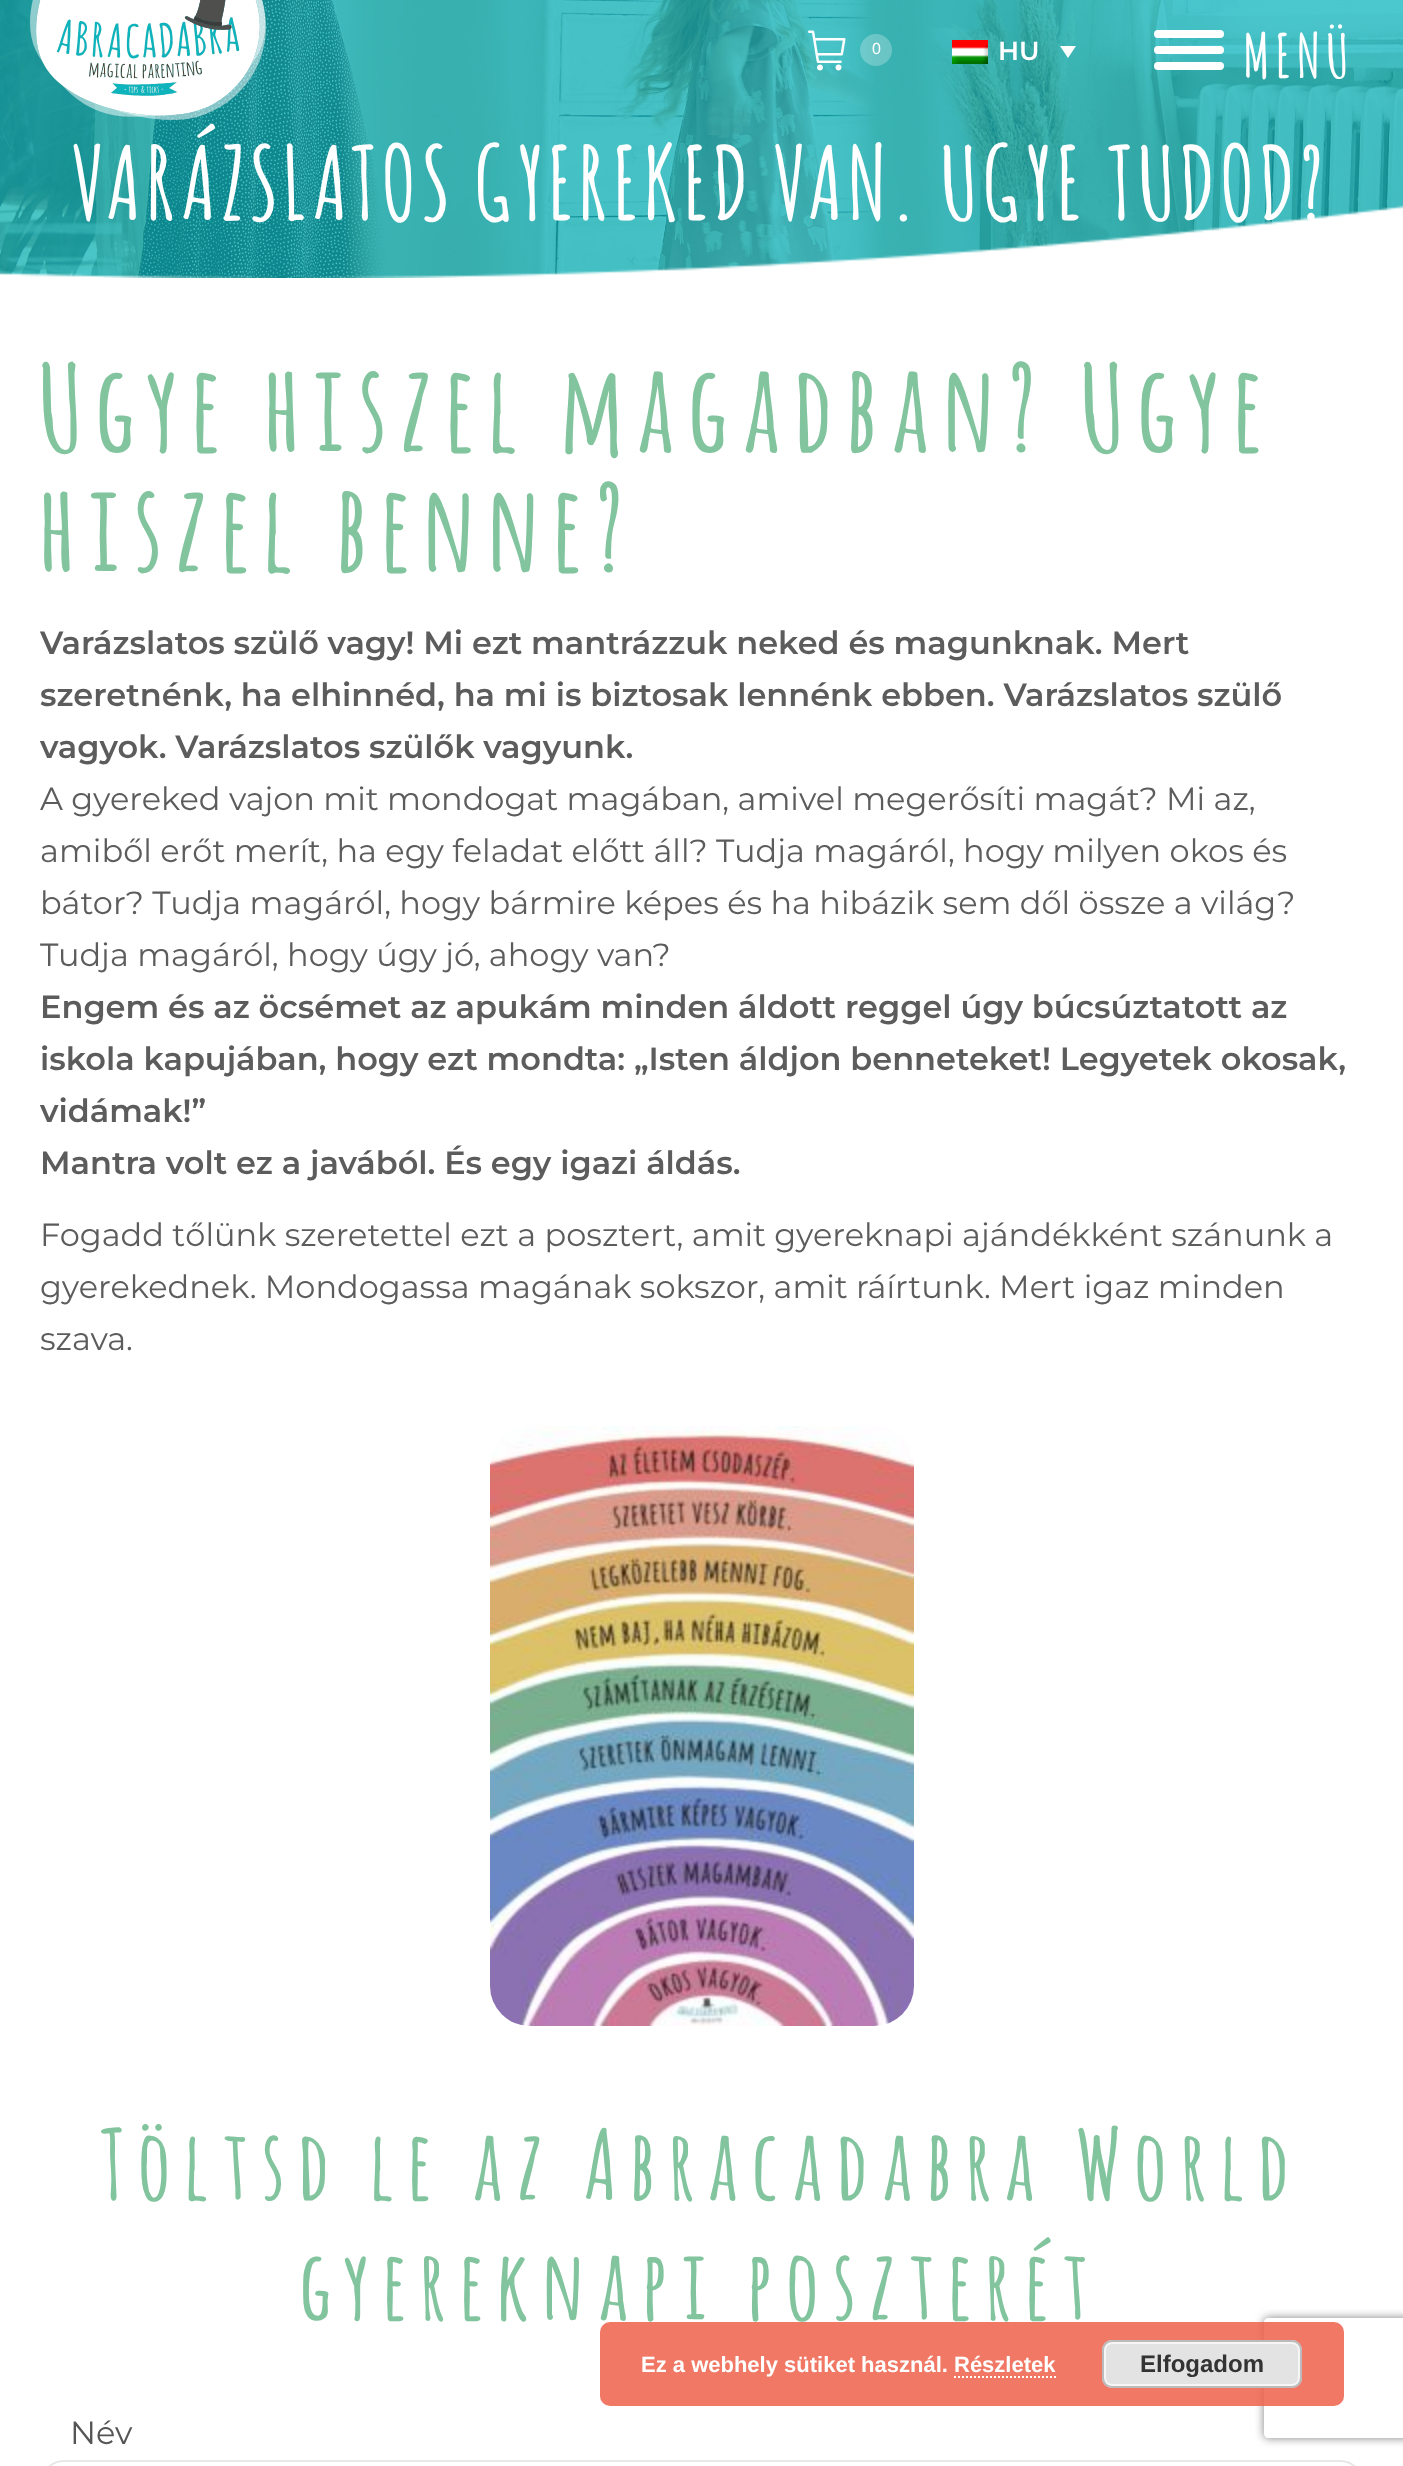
(async () => {
  const canvas = document.querySelector("canvas");
  canvas.width = 1403;
  canvas.height = 2466;
  const ctx = canvas.getContext("2d");
  ctx.miterLimit = 4;
  ctx.fontKerning = "normal";
  async function loadImage(src) {
    const img = new Image();
    img.src = src;
    await img.decode();
    return img;
  }
  let path;

  ctx.fillStyle = "#ffffff";
  ctx.fillRect(0, 0, 1403, 2466);
  ctx.drawImage(await loadImage("img/4.png"), 0, 0, 1403, 278);
  ctx.drawImage(await loadImage("img/1.png"), 30, 0, 236, 120);
  ctx.drawImage(await loadImage("img/2.png"), 808, 30, 38, 41);
  ctx.fillStyle = "rgba(255, 255, 255, 0.25)";
  ctx.beginPath();
  ctx.arc(876, 50, 16, 0, Math.PI * 2);
  ctx.fill();
  ctx.drawImage(await loadImage("img/3.png"), 952, 40, 36, 24);
  ctx.fillStyle = "#ffffff";
  path = new Path2D("M1060 46H1076L1068 58Z");
  ctx.fill(path);
  ctx.beginPath();
  ctx.roundRect(1154, 30, 70, 8, 4);
  ctx.fill();
  ctx.beginPath();
  ctx.roundRect(1154, 46, 70, 8, 4);
  ctx.fill();
  ctx.beginPath();
  ctx.roundRect(1154, 62, 70, 8, 4);
  ctx.fill();
  ctx.drawImage(await loadImage("img/5.png"), 0, 205, 1403, 73);
  ctx.drawImage(await loadImage("img/6.png"), 490, 1426, 424, 600);
  ctx.beginPath();
  ctx.roundRect(41, 2461, 1322, 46, 39);
  ctx.strokeStyle = "#e7e7e7";
  ctx.lineWidth = 2;
  ctx.stroke();
  ctx.save();
  path = new Path2D("M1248 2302H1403V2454H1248ZM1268 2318H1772C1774 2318 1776 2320 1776 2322V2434C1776 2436 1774 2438 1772 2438H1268C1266 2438 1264 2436 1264 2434V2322C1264 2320 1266 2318 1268 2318Z");
  ctx.clip(path, "evenodd");
  ctx.fillStyle = "#808080";
  ctx.filter = "blur(5px)";
  ctx.beginPath();
  ctx.roundRect(1264, 2318, 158, 120, 4);
  ctx.fill();
  ctx.filter = "none";
  ctx.restore();
  ctx.fillStyle = "rgba(238, 96, 74, 0.85)";
  ctx.beginPath();
  ctx.roundRect(600, 2322, 744, 84, 10);
  ctx.fill();
  ctx.fillStyle = "#e3e3e3";
  ctx.beginPath();
  ctx.roundRect(1102, 2340, 200, 48, 10);
  ctx.fill();
  ctx.beginPath();
  ctx.roundRect(1105, 2343, 194, 42, 7);
  ctx.strokeStyle = "#f6f6f6";
  ctx.stroke();
  ctx.beginPath();
  ctx.roundRect(1103, 2341, 198, 46, 9);
  ctx.strokeStyle = "#bbbbbb";
  ctx.stroke();
  path = new Path2D("M954 2377H1056");
  ctx.strokeStyle = "#ffffff";
  ctx.setLineDash([2, 2]);
  ctx.stroke(path);
  ctx.font = "16px Liberation Sans";
  ctx.fillStyle = "#ffffff";
  ctx.fillText("0", 872, 54);
  ctx.font = "600 26px Montserrat";
  ctx.fillText("HU", 998, 60);
  ctx.letterSpacing = "8px";
  ctx.font = "bold 60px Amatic";
  ctx.fillText("MENÜ", 1244, 78);
  ctx.font = "bold 100px Amatic";
  ctx.fillText("VARÁZSLATOS GYEREKED VAN. UGYE TUDOD?", 72, 220);
  ctx.letterSpacing = "16px";
  ctx.font = "bold 120px Amatic";
  ctx.fillStyle = "#81c49d";
  ctx.fillText("Ugye hiszel magadban? Ugye", 40, 452);
  ctx.fillText("hiszel benne?", 40, 572);
  ctx.letterSpacing = "0px";
  ctx.font = "600 32px Montserrat";
  ctx.fillStyle = "#5c5c5c";
  for (const [text, x, y] of [
    ["Varázslatos szülő vagy! Mi ezt mantrázzuk neked és magunknak. Mert", 40, 654],
    ["szeretnénk, ha elhinnéd, ha mi is biztosak lennénk ebben. Varázslatos szülő", 40, 706],
    ["vagyok. Varázslatos szülők vagyunk.", 40, 758],
  ]) {
    ctx.fillText(text, x, y);
  }
  ctx.font = "32px Montserrat";
  for (const [text, x, y] of [
    ["A gyereked vajon mit mondogat magában, amivel megerősíti magát? Mi az,", 40, 810],
    ["amiből erőt merít, ha egy feladat előtt áll? Tudja magáról, hogy milyen okos és", 40, 862],
    ["bátor? Tudja magáról, hogy bármire képes és ha hibázik sem dől össze a világ?", 40, 914],
    ["Tudja magáról, hogy úgy jó, ahogy van?", 40, 966],
  ]) {
    ctx.fillText(text, x, y);
  }
  ctx.font = "600 32px Montserrat";
  for (const [text, x, y] of [
    ["Engem és az öcsémet az apukám minden áldott reggel úgy búcsúztatott az", 40, 1018],
    ["iskola kapujában, hogy ezt mondta: „Isten áldjon benneteket! Legyetek okosak,", 40, 1070],
    ["vidámak!”", 40, 1122],
    ["Mantra volt ez a javából. És egy igazi áldás.", 40, 1174],
  ]) {
    ctx.fillText(text, x, y);
  }
  ctx.font = "32px Montserrat";
  for (const [text, x, y] of [
    ["Fogadd tőlünk szeretettel ezt a posztert, amit gyereknapi ajándékként szánunk a", 40, 1246],
    ["gyerekednek. Mondogassa magának sokszor, amit ráírtunk. Mert igaz minden", 40, 1298],
    ["szava.", 40, 1350],
  ]) {
    ctx.fillText(text, x, y);
  }
  ctx.letterSpacing = "16px";
  ctx.font = "bold 96px Amatic";
  ctx.fillStyle = "#81c49d";
  ctx.fillText("Töltsd le az Abracadabra World", 100, 2200);
  ctx.fillText("gyereknapi poszterét", 301, 2320);
  ctx.letterSpacing = "0px";
  ctx.font = "32px Montserrat";
  ctx.fillStyle = "#555555";
  ctx.fillText("Név", 70, 2444);
  ctx.font = "bold 22px Liberation Sans";
  ctx.fillStyle = "#ffffff";
  ctx.fillText("Ez a webhely sütiket használ. Részletek", 641, 2372);
  ctx.font = "bold 24px Liberation Sans";
  ctx.fillStyle = "#333333";
  ctx.fillText("Elfogadom", 1140, 2372);
})();
